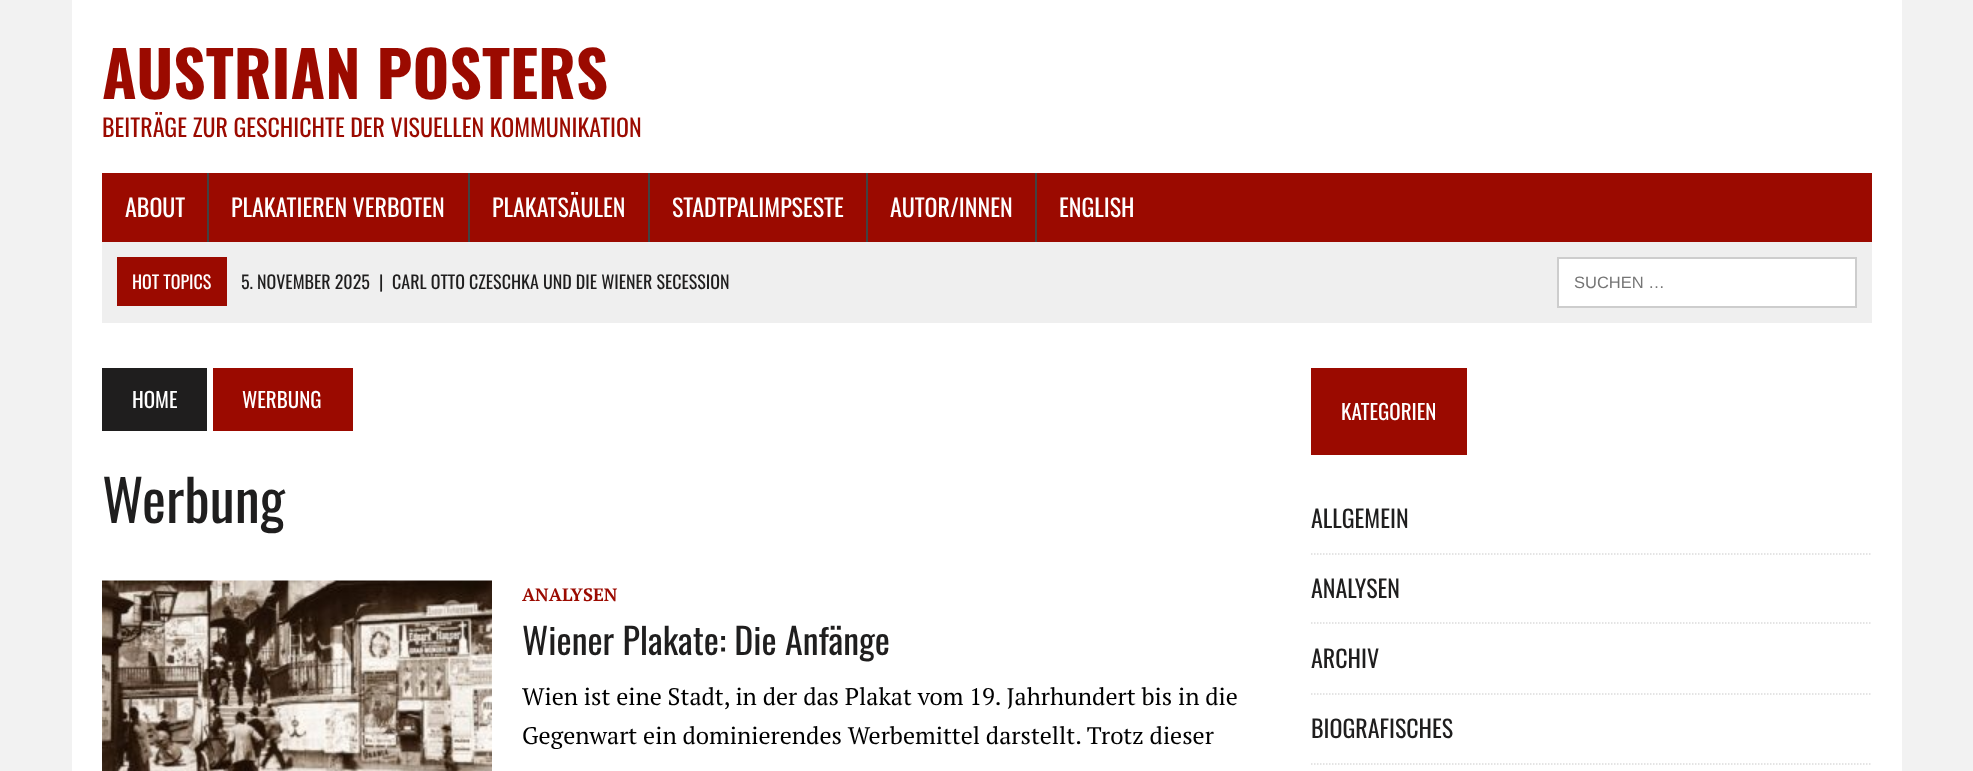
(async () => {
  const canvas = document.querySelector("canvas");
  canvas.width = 1973;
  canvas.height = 771;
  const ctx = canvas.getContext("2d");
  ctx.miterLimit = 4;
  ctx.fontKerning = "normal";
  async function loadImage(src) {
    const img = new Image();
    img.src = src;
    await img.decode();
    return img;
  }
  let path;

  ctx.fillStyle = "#f2f2f2";
  ctx.fillRect(0, 0, 1973, 771);
  for (const [x, y, w, h, color] of [
    [72, 0, 1830, 771, "#ffffff"],
    [102, 173, 1770, 69, "#9b0a00"],
    [207, 173, 2, 69, "#424242"],
    [468, 173, 2, 69, "#424242"],
    [648, 173, 2, 69, "#424242"],
    [866, 173, 2, 69, "#424242"],
    [1035, 173, 2, 69, "#424242"],
    [102, 242, 1770, 81, "#efefef"],
    [117, 257, 110, 49, "#9b0a00"],
  ]) {
    ctx.fillStyle = color;
    ctx.fillRect(x, y, w, h);
  }
  ctx.fillStyle = "#ffffff";
  ctx.beginPath();
  ctx.rect(1558, 258, 298, 49);
  ctx.fill();
  ctx.strokeStyle = "#cdcdcd";
  ctx.lineWidth = 2;
  ctx.stroke();
  ctx.fillStyle = "#1f1e1e";
  ctx.fillRect(102, 368, 105, 63);
  ctx.fillStyle = "#9b0a00";
  ctx.fillRect(213, 368, 140, 63);
  ctx.drawImage(await loadImage("img/1.png"), 102, 580, 390, 191);
  ctx.fillRect(1311, 368, 156, 87);
  path = new Path2D("M1311 554H1872");
  ctx.strokeStyle = "#dcdcdc";
  ctx.lineWidth = 1.5;
  ctx.setLineDash([1.5, 1.5]);
  ctx.stroke(path);
  path = new Path2D("M1311 623H1872");
  ctx.stroke(path);
  path = new Path2D("M1311 694H1872");
  ctx.stroke(path);
  path = new Path2D("M1311 764H1872");
  ctx.stroke(path);
  ctx.font = "bold 63px Oswald";
  ctx.fillText("AUSTRIAN POSTERS", 102, 99);
  ctx.font = "24px Oswald";
  ctx.fillText("BEITRÄGE ZUR GESCHICHTE DER VISUELLEN KOMMUNIKATION", 102, 137);
  ctx.fillStyle = "#ffffff";
  for (const [text, x, y] of [
    ["ABOUT", 125, 217],
    ["PLAKATIEREN VERBOTEN", 231, 217],
    ["PLAKATSÄULEN", 492, 217],
    ["STADTPALIMPSESTE", 672, 217],
    ["AUTOR/INNEN", 890, 217],
    ["ENGLISH", 1059, 217],
  ]) {
    ctx.fillText(text, x, y);
  }
  ctx.font = "18px Oswald";
  ctx.fillText("HOT TOPICS", 132, 289);
  ctx.fillStyle = "#1f1e1e";
  for (const [text, x, y] of [
    ["5. NOVEMBER 2025", 241, 289],
    ["|", 379, 289],
    ["CARL OTTO CZESCHKA UND DIE WIENER SECESSION", 392, 289],
  ]) {
    ctx.fillText(text, x, y);
  }
  ctx.font = "16.5px Liberation Sans";
  ctx.fillStyle = "#757575";
  ctx.fillText("SUCHEN …", 1574, 288);
  ctx.font = "21px Oswald";
  ctx.fillStyle = "#ffffff";
  ctx.fillText("HOME", 132, 408);
  ctx.fillText("WERBUNG", 242, 408);
  ctx.font = "57px Oswald";
  ctx.fillStyle = "#1f1e1e";
  ctx.fillText("Werbung", 102, 523);
  ctx.font = "bold 18px PT Serif";
  ctx.fillStyle = "#9b0a00";
  ctx.fillText("ANALYSEN", 522, 601);
  ctx.font = "36px Oswald";
  ctx.fillStyle = "#1f1e1e";
  ctx.fillText("Wiener Plakate: Die Anfänge", 522, 655);
  ctx.font = "24px PT Serif";
  ctx.fillStyle = "#000000";
  ctx.fillText("Wien ist eine Stadt, in der das Plakat vom 19. Jahrhundert bis in die", 522, 705);
  ctx.fillText("Gegenwart ein dominierendes Werbemittel darstellt. Trotz dieser", 522, 744);
  ctx.font = "21px Oswald";
  ctx.fillStyle = "#ffffff";
  ctx.fillText("KATEGORIEN", 1341, 420);
  ctx.font = "24px Oswald";
  ctx.fillStyle = "#1f1e1e";
  for (const [text, x, y] of [
    ["ALLGEMEIN", 1311, 528],
    ["ANALYSEN", 1311, 598],
    ["ARCHIV", 1311, 668],
    ["BIOGRAFISCHES", 1311, 738],
  ]) {
    ctx.fillText(text, x, y);
  }
})();
